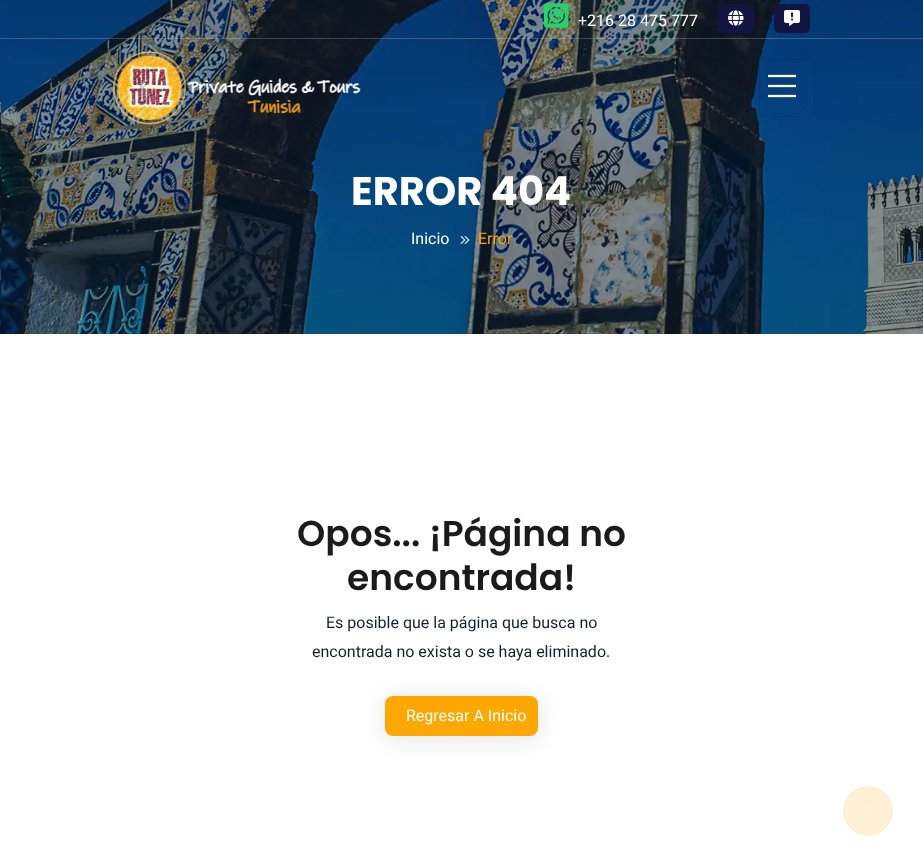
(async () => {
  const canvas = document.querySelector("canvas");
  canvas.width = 923;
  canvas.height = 856;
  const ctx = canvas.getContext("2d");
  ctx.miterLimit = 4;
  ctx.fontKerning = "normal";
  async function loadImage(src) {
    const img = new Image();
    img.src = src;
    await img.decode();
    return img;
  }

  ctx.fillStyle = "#ffffff";
  ctx.fillRect(0, 0, 923, 856);
  ctx.drawImage(await loadImage("img/6.png"), 0, 0, 923, 334);
  ctx.fillStyle = "rgba(255, 255, 255, 0.2)";
  ctx.fillRect(0, 38, 923, 1);
  ctx.drawImage(await loadImage("img/1.png"), 544, 3, 25, 25);
  ctx.fillStyle = "#121541";
  ctx.beginPath();
  ctx.roundRect(718, 4, 36, 29, 5);
  ctx.fill();
  ctx.drawImage(await loadImage("img/2.png"), 728, 10, 16, 16);
  ctx.beginPath();
  ctx.roundRect(774, 4, 36, 29, 5);
  ctx.fill();
  ctx.drawImage(await loadImage("img/3.png"), 784, 10, 16, 16);
  ctx.drawImage(await loadImage("img/4.png"), 112, 51, 249, 74);
  ctx.beginPath();
  ctx.roundRect(759.5, 59.5, 55, 57, 5.5);
  ctx.strokeStyle = "rgba(0, 0, 0, 0.1)";
  ctx.stroke();
  ctx.drawImage(await loadImage("img/5.png"), 768, 74, 28, 24);
  ctx.drawImage(await loadImage("img/7.png"), 460, 236, 10, 8);
  ctx.fillStyle = "rgba(0, 0, 0, 0.1)";
  ctx.filter = "blur(12px)";
  ctx.beginPath();
  ctx.roundRect(385, 699, 153, 40, 8);
  ctx.fill();
  ctx.filter = "none";
  ctx.fillStyle = "#fca702";
  ctx.beginPath();
  ctx.roundRect(385, 696, 153, 40, 8);
  ctx.fill();
  ctx.fillStyle = "#fef0d5";
  ctx.beginPath();
  ctx.arc(868, 811, 25, 0, Math.PI * 2);
  ctx.fill();
  ctx.drawImage(await loadImage("img/8.png"), 864, 806, 9, 9);
  ctx.font = "16px Roboto";
  ctx.fillStyle = "#ffffff";
  ctx.fillText("+216 28 475 777", 578, 26);
  ctx.font = "bold 40px Poppins";
  ctx.fillText("ERROR 404", 351, 205);
  ctx.font = "16px Roboto";
  ctx.fillText("Inicio", 411, 244);
  ctx.fillStyle = "#fca702";
  ctx.fillText("Error", 478, 244);
  ctx.font = "600 36px Poppins";
  ctx.fillStyle = "#1b1b1b";
  ctx.fillText("Opos... ¡Página no", 297, 546);
  ctx.fillText("encontrada!", 347, 590);
  ctx.font = "16px Roboto";
  ctx.fillStyle = "#14212b";
  ctx.fillText("Es posible que la página que busca no", 326, 628);
  ctx.fillText("encontrada no exista o se haya eliminado.", 312, 657);
  ctx.fillStyle = "#ffffff";
  ctx.fillText("Regresar A Inicio", 406, 721);
})();
